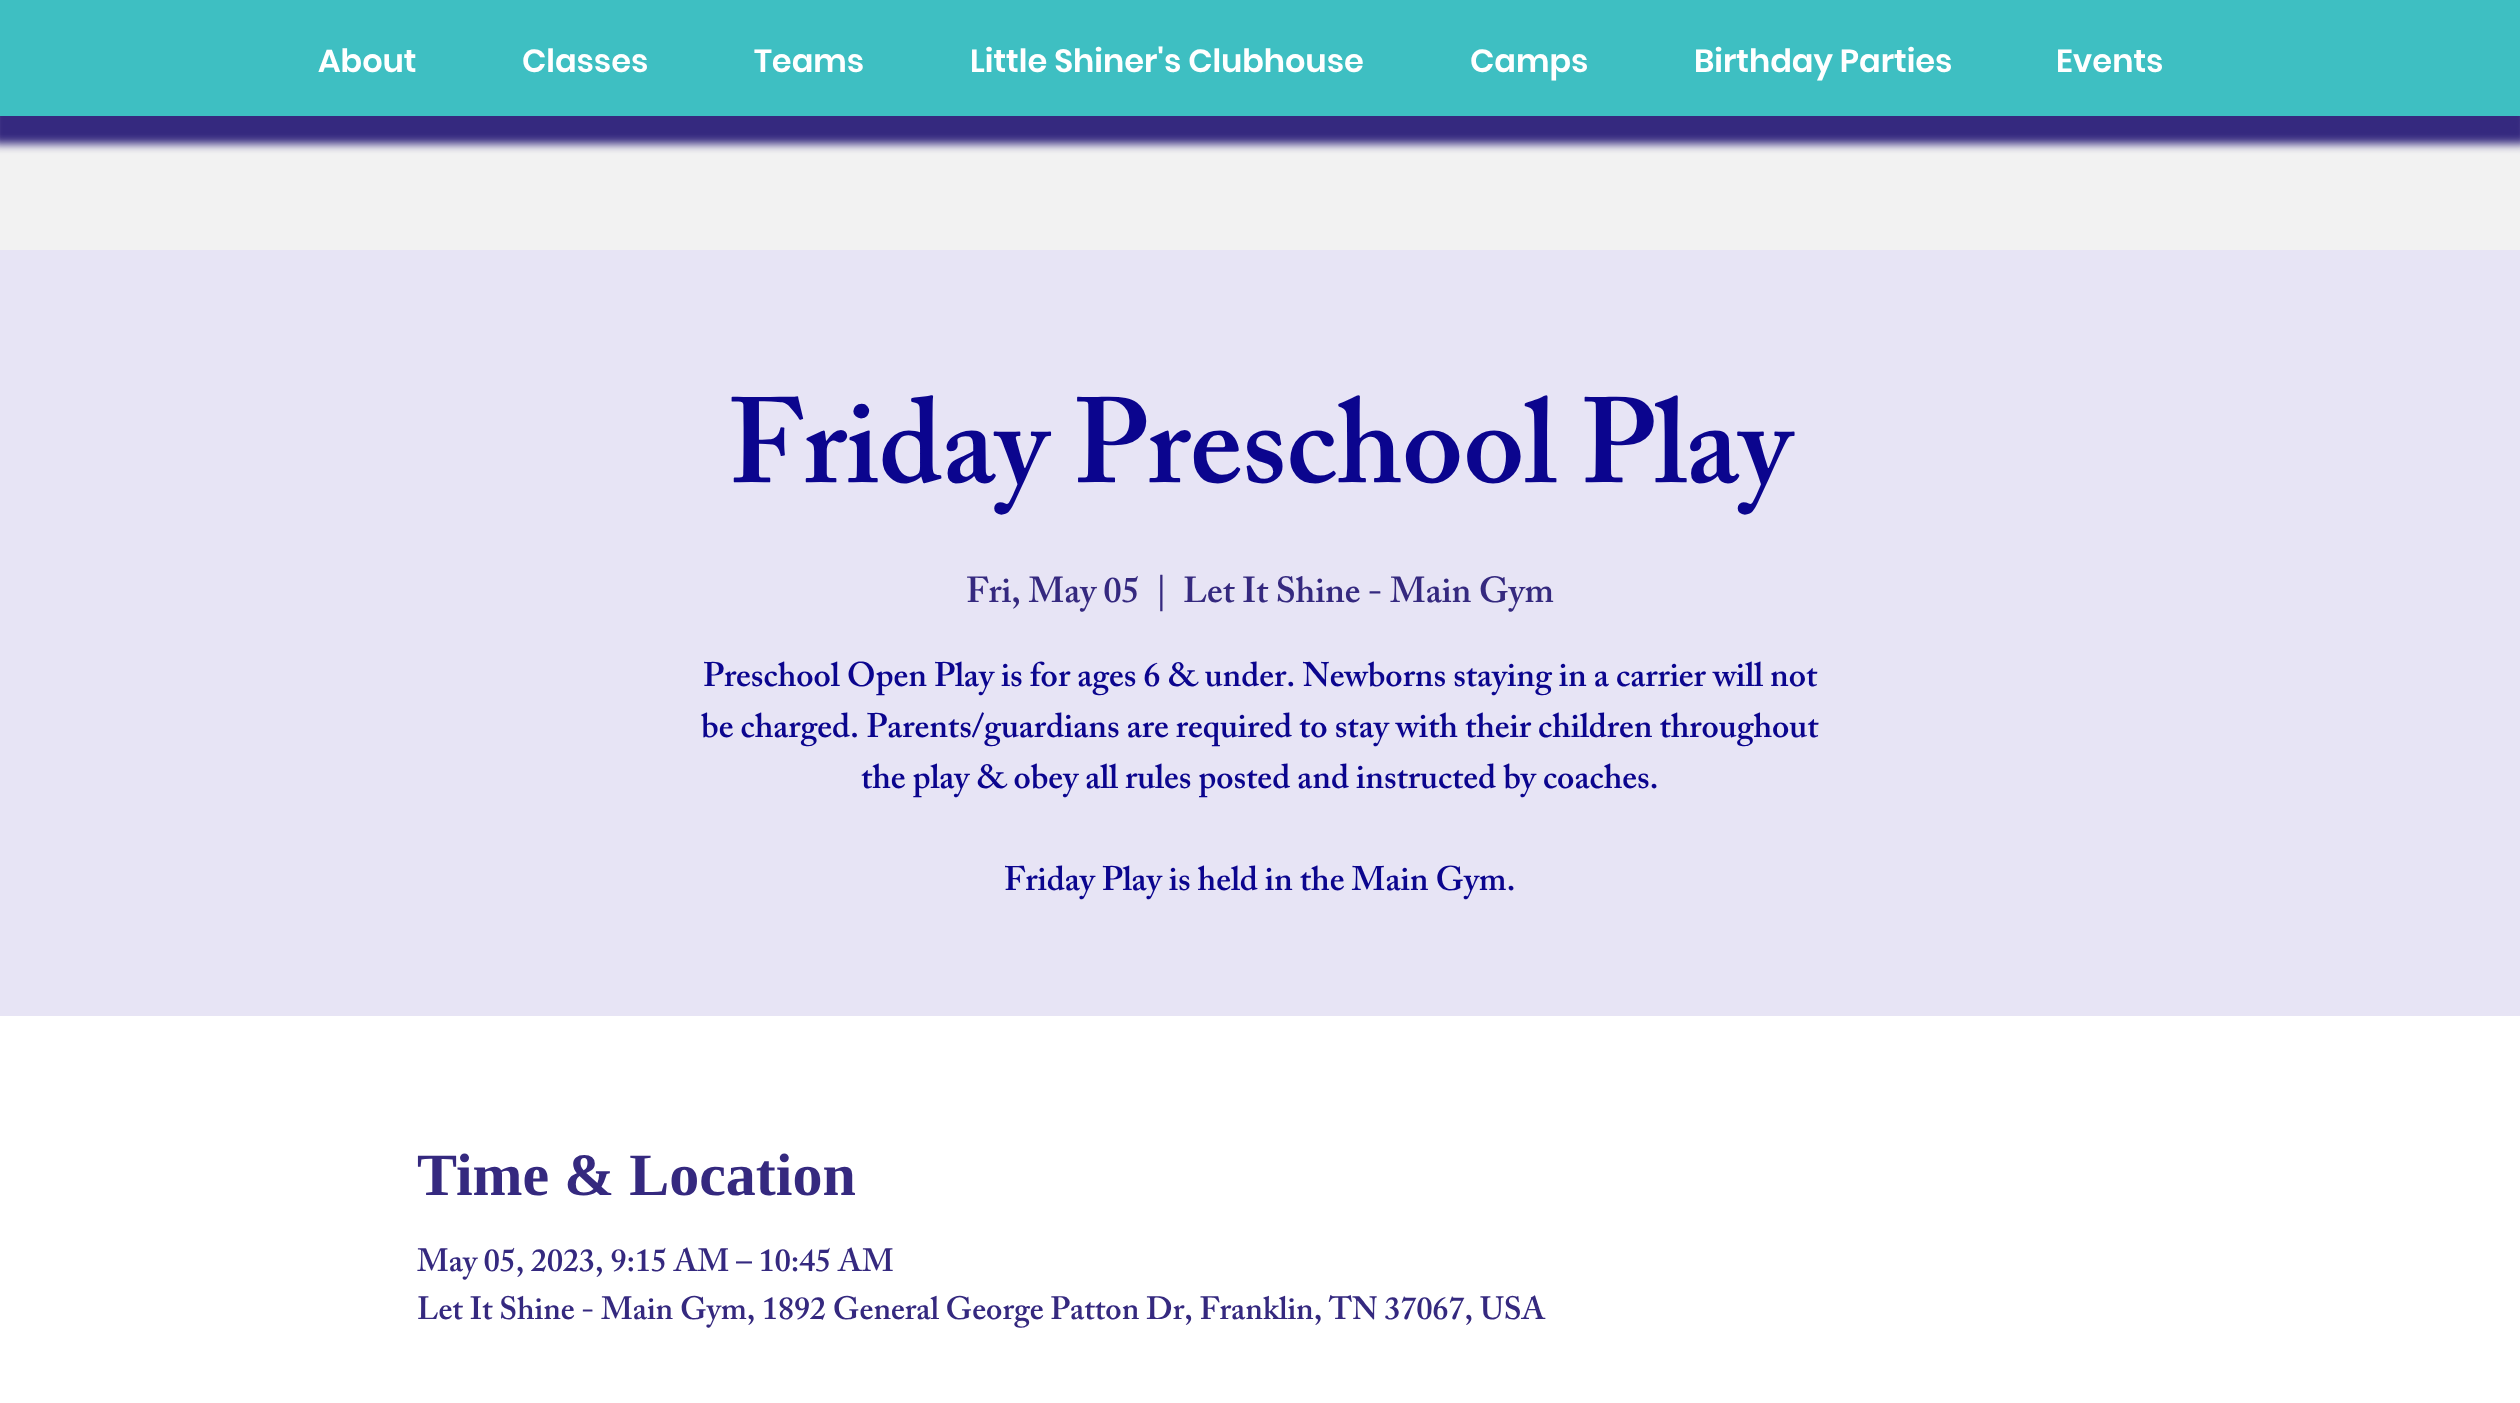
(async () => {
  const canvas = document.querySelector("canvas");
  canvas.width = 2520;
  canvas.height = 1403;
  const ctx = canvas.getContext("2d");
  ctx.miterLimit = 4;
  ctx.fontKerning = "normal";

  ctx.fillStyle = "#f2f2f2";
  ctx.fillRect(0, 0, 2520, 1403);
  ctx.fillStyle = "#35297f";
  ctx.filter = "blur(5px)";
  ctx.beginPath();
  ctx.rect(-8, -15, 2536, 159);
  ctx.fill();
  ctx.filter = "none";
  for (const [x, y, w, h, color] of [
    [0, 0, 2520, 116, "#3ebfc2"],
    [0, 250, 2520, 766, "#e7e4f5"],
    [0, 1016, 2520, 387, "#ffffff"],
  ]) {
    ctx.fillStyle = color;
    ctx.fillRect(x, y, w, h);
  }
  ctx.font = "600 32px Poppins";
  for (const [text, x, y] of [
    ["About", 318, 72],
    ["Classes", 522, 72],
    ["Teams", 754, 72],
    ["Little Shiner's Clubhouse", 970, 72],
    ["Camps", 1470, 72],
    ["Birthday Parties", 1694, 72],
    ["Events", 2056, 72],
  ]) {
    ctx.fillText(text, x, y);
  }
  ctx.font = "600 120px 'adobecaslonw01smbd'";
  ctx.fillStyle = "#0b058e";
  ctx.fillText("Friday Preschool Play", 728, 482);
  ctx.font = "600 36px 'adobecaslonw01smbd'";
  ctx.fillStyle = "#35297f";
  for (const [text, x, y] of [
    ["Fri, May 05", 966, 602],
    ["|", 1155, 602],
    ["Let It Shine - Main Gym", 1183, 602],
  ]) {
    ctx.fillText(text, x, y);
  }
  ctx.font = "600 34px 'adobecaslonw01smbd'";
  ctx.fillStyle = "#0b058e";
  for (const [text, x, y] of [
    ["Preschool Open Play is for ages 6 & under. Newborns staying in a carrier will not", 703, 686],
    ["be charged. Parents/guardians are required to stay with their children throughout", 701, 737],
    ["the play & obey all rules posted and instructed by coaches.", 861, 788],
    ["Friday Play is held in the Main Gym.", 1004, 890],
  ]) {
    ctx.fillText(text, x, y);
  }
  ctx.font = "bold 60px Liberation Serif";
  ctx.fillStyle = "#35297f";
  ctx.fillText("Time & Location", 417, 1195);
  ctx.font = "600 32px 'adobecaslonw01smbd'";
  ctx.fillText("May 05, 2023, 9:15 AM – 10:45 AM", 417, 1271);
  ctx.fillText("Let It Shine - Main Gym, 1892 General George Patton Dr, Franklin, TN 37067, USA", 417, 1319);
})();
